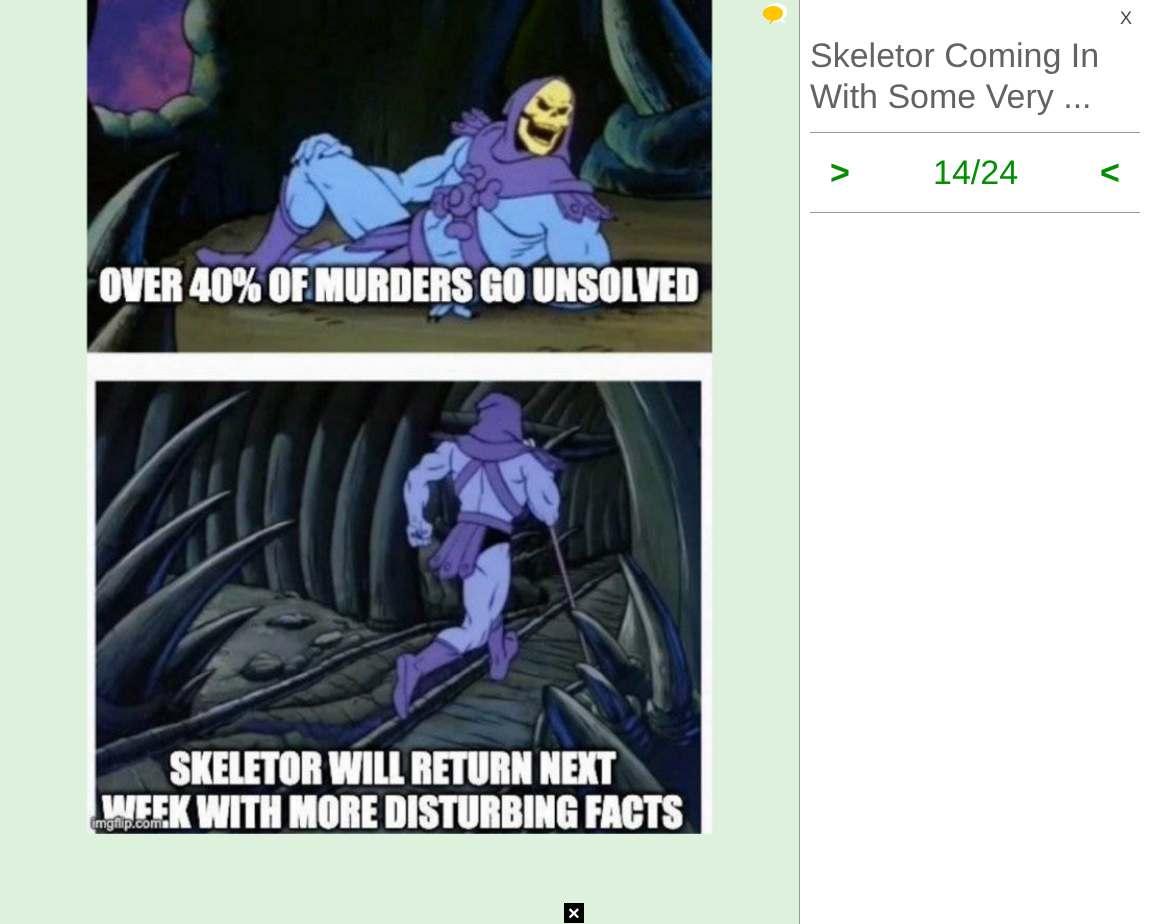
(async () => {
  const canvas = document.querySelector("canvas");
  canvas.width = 1150;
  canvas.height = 924;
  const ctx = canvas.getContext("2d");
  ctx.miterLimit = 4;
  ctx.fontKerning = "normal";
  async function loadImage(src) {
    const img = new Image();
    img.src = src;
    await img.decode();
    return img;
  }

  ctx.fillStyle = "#ddf1dd";
  ctx.fillRect(0, 0, 1150, 924);
  ctx.drawImage(await loadImage("img/1.png"), 86, 0, 627, 834);
  ctx.drawImage(await loadImage("img/2.png"), 763, 3, 24, 21);
  for (const [x, y, w, h, color] of [
    [800, 0, 350, 924, "#ffffff"],
    [799, 0, 1, 924, "#999999"],
    [810, 132, 330, 1, "#999999"],
    [810, 212, 330, 1, "#999999"],
    [564, 903, 20, 20, "#000000"],
  ]) {
    ctx.fillStyle = color;
    ctx.fillRect(x, y, w, h);
  }
  ctx.font = "18px Liberation Sans";
  ctx.fillStyle = "#444444";
  ctx.fillText("X", 1120, 24);
  ctx.font = "34px Liberation Sans";
  ctx.fillStyle = "#636363";
  ctx.fillText("Skeletor Coming In", 810, 67);
  ctx.fillText("With Some Very ...", 810, 108);
  ctx.font = "bold 34px Liberation Sans";
  ctx.fillStyle = "#009000";
  ctx.fillText(">", 830, 184);
  ctx.font = "34px Liberation Sans";
  ctx.fillText("14/24", 933, 184);
  ctx.font = "bold 34px Liberation Sans";
  ctx.fillText("<", 1100, 184);
  ctx.font = "bold 20px Liberation Sans";
  ctx.fillStyle = "#ffffff";
  ctx.fillText("×", 568, 920);
})();
